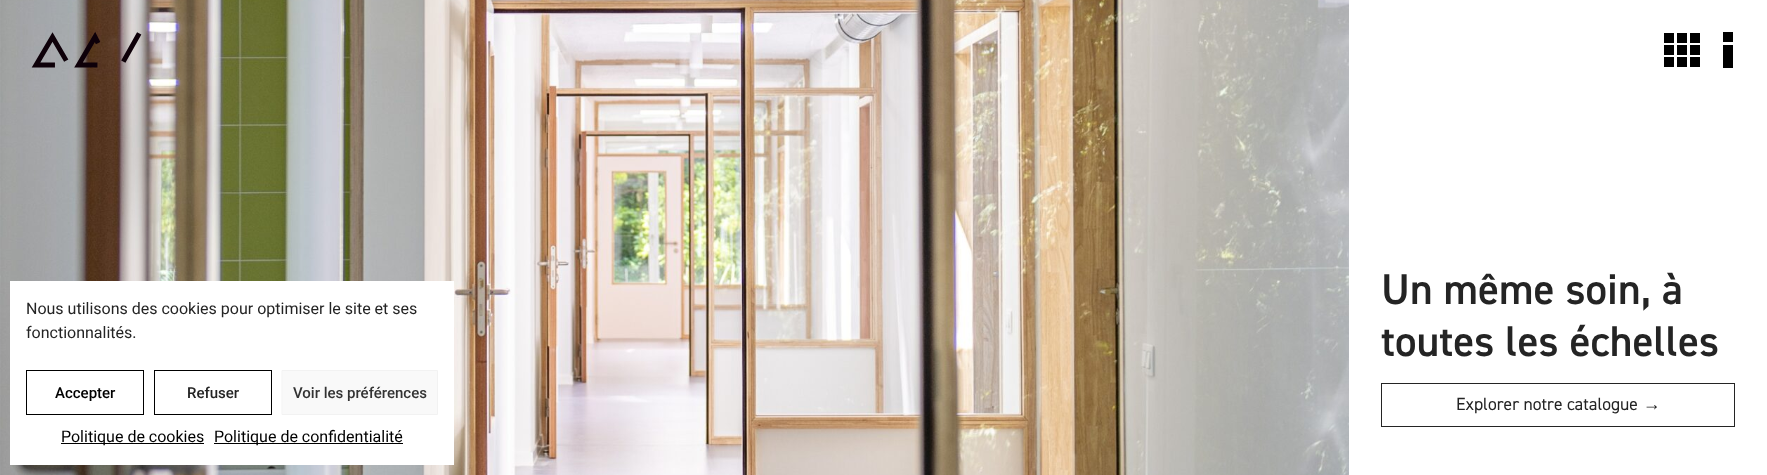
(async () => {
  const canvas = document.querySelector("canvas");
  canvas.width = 1767;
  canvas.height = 475;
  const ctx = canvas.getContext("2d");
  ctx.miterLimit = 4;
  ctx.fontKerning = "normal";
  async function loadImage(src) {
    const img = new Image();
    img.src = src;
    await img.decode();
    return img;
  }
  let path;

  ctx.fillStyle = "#ffffff";
  ctx.fillRect(0, 0, 1767, 475);
  ctx.drawImage(await loadImage("img/2.png"), 0, 0, 1349, 475);
  path = new Path2D("M52.5 65H36L52.5 37L65 58.5");
  ctx.strokeStyle = "#0e0009";
  ctx.lineWidth = 4.9;
  ctx.lineCap = "square";
  ctx.stroke(path);
  path = new Path2D("M95 65H78.5L95 37L97 41");
  ctx.stroke(path);
  path = new Path2D("M138 35.5L124.5 59.5");
  ctx.stroke(path);
  ctx.drawImage(await loadImage("img/1.png"), 1664, 33, 36, 34);
  for (const [x, y, w, h, color] of [
    [1723, 32, 10, 10, "#000000"],
    [1723, 45, 10, 23, "#000000"],
    [10, 281, 444, 184, "#ffffff"],
  ]) {
    ctx.fillStyle = color;
    ctx.fillRect(x, y, w, h);
  }
  ctx.strokeStyle = "#000000";
  ctx.lineWidth = 1;
  ctx.strokeRect(26.5, 370.5, 117, 44);
  ctx.strokeRect(154.5, 370.5, 117, 44);
  ctx.fillStyle = "#f9f9f9";
  ctx.beginPath();
  ctx.rect(282.5, 370.5, 155, 44);
  ctx.fill();
  ctx.strokeStyle = "#f2f2f2";
  ctx.stroke();
  ctx.fillStyle = "#000000";
  ctx.fillRect(61, 443, 143, 1);
  ctx.fillRect(214, 443, 189, 1);
  ctx.strokeStyle = "#242424";
  ctx.strokeRect(1381.5, 383.5, 353, 43);
  ctx.font = "16px Roboto";
  ctx.fillStyle = "#242424";
  ctx.fillText("Nous utilisons des cookies pour optimiser le site et ses", 26, 314);
  ctx.fillText("fonctionnalités.", 26, 338);
  ctx.font = "500 15px Roboto";
  ctx.fillStyle = "#000000";
  ctx.fillText("Accepter", 55, 398);
  ctx.fillStyle = "#242424";
  ctx.fillText("Refuser", 187, 398);
  ctx.fillStyle = "#333333";
  ctx.fillText("Voir les préférences", 293, 398);
  ctx.font = "16px Roboto";
  ctx.fillStyle = "#000000";
  ctx.fillText("Politique de cookies", 61, 442);
  ctx.fillText("Politique de confidentialité", 214, 442);
  ctx.font = "600 43.25px 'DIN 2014'";
  ctx.fillStyle = "#242424";
  ctx.fillText("Un même soin, à", 1381, 304);
  ctx.fillText("toutes les échelles", 1381, 356);
  ctx.font = "17.6px 'DIN 2014'";
  ctx.fillText("Explorer notre catalogue", 1456, 410);
  ctx.font = "17.6px Liberation Sans";
  ctx.fillText("→", 1643, 410);
})();
